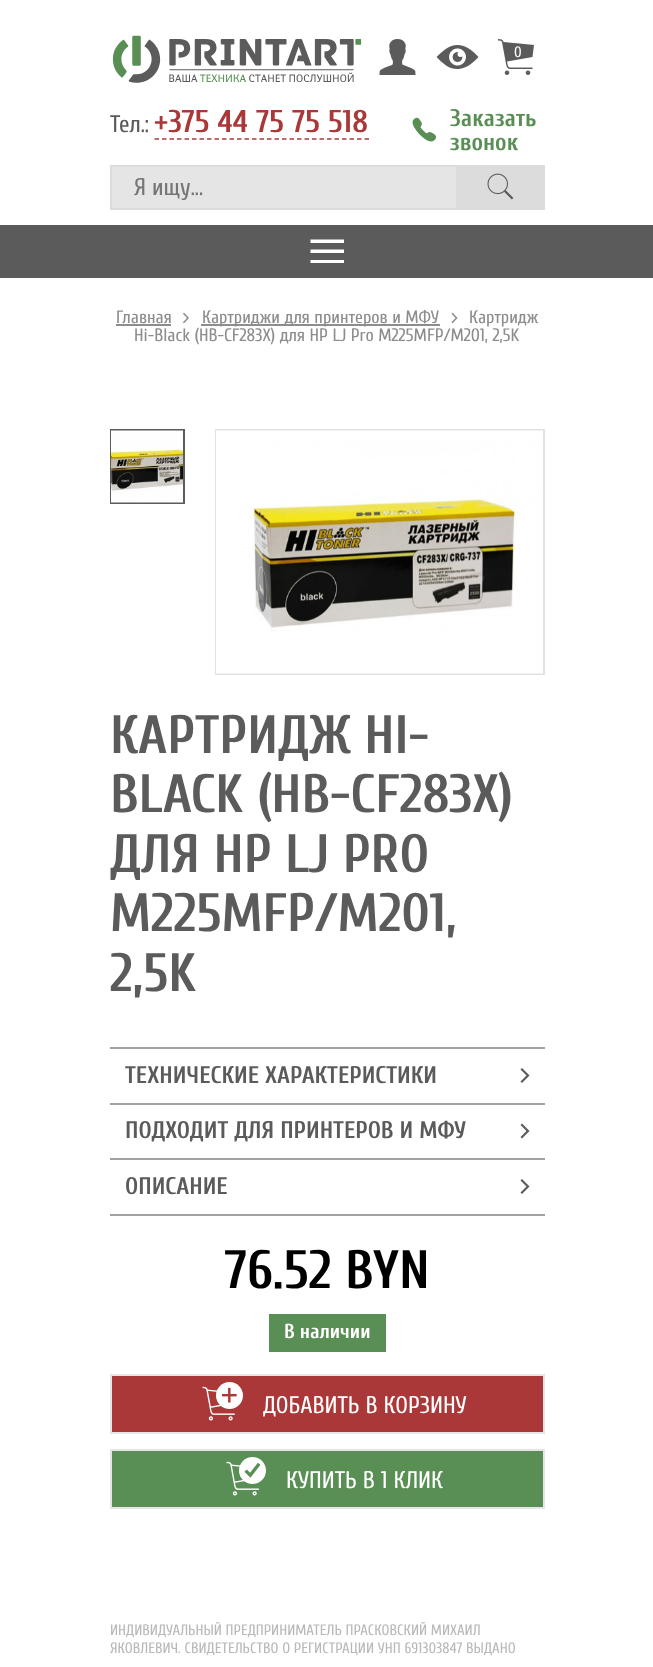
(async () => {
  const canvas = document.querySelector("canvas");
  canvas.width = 653;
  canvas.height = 1667;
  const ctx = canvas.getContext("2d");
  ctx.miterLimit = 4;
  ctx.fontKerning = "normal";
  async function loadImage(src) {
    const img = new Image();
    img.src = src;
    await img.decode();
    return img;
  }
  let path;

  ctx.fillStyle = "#ffffff";
  ctx.fillRect(0, 0, 653, 1667);
  ctx.drawImage(await loadImage("img/1.png"), 112, 35, 250, 48);
  ctx.drawImage(await loadImage("img/2.png"), 379, 39, 37, 36);
  ctx.drawImage(await loadImage("img/3.png"), 436, 45, 43, 24);
  ctx.drawImage(await loadImage("img/4.png"), 498, 39, 36, 36);
  path = new Path2D("M154.5 139H369");
  ctx.strokeStyle = "#aa3838";
  ctx.lineWidth = 1.5;
  ctx.setLineDash([4.5, 3]);
  ctx.stroke(path);
  ctx.drawImage(await loadImage("img/5.png"), 412, 117, 25, 25);
  ctx.fillStyle = "#e5e5e5";
  ctx.beginPath();
  ctx.rect(111, 166, 346, 43);
  ctx.fill();
  ctx.strokeStyle = "#dcdcdc";
  ctx.lineWidth = 2;
  ctx.setLineDash([]);
  ctx.stroke();
  ctx.fillStyle = "#dcdcdc";
  ctx.fillRect(458, 165, 87, 45);
  ctx.drawImage(await loadImage("img/6.png"), 487, 173, 27, 27);
  ctx.fillStyle = "#5b5b5b";
  ctx.fillRect(0, 225, 653, 53);
  ctx.fillStyle = "#ffffff";
  path = new Path2D("M310.5 253V249.5H344V253ZM310.5 243V239.5H344V243ZM310.5 263V260H344V263Z");
  ctx.fill(path);
  ctx.fillStyle = "#8d8d8d";
  ctx.fillRect(116, 324, 55, 2);
  ctx.drawImage(await loadImage("img/7.png"), 183, 312, 6, 12);
  ctx.fillRect(201, 324, 239, 2);
  ctx.drawImage(await loadImage("img/8.png"), 451, 312, 7, 12);
  ctx.strokeStyle = "#5b5b5b";
  ctx.strokeRect(111, 430, 73, 73);
  ctx.drawImage(await loadImage("img/9.png"), 111, 430, 72, 73);
  ctx.strokeStyle = "#e2e2e2";
  ctx.strokeRect(216, 430, 328, 244);
  ctx.drawImage(await loadImage("img/10.png"), 216, 430, 327, 244);
  ctx.fillStyle = "#a2a2a2";
  ctx.fillRect(110, 1047, 435, 2);
  ctx.fillRect(110, 1103, 435, 2);
  ctx.drawImage(await loadImage("img/11.png"), 520, 1068, 10, 15);
  ctx.fillRect(110, 1158, 435, 2);
  ctx.drawImage(await loadImage("img/12.png"), 520, 1123, 10, 16);
  ctx.fillRect(110, 1214, 435, 2);
  ctx.drawImage(await loadImage("img/11.png"), 520, 1179, 10, 15);
  ctx.fillStyle = "#598f54";
  ctx.fillRect(269, 1314, 117, 38);
  ctx.fillStyle = "#aa3838";
  ctx.beginPath();
  ctx.rect(111, 1375, 433, 58);
  ctx.fill();
  ctx.strokeStyle = "#e5e5e5";
  ctx.stroke();
  ctx.drawImage(await loadImage("img/14.png"), 202, 1386, 33, 35);
  ctx.fillStyle = "#ffffff";
  ctx.beginPath();
  ctx.arc(229.5, 1395.5, 13.5, 0, Math.PI * 2);
  ctx.fill();
  ctx.drawImage(await loadImage("img/13.png"), 222, 1387, 15, 16);
  ctx.fillStyle = "#598f54";
  ctx.beginPath();
  ctx.rect(111, 1450, 433, 58);
  ctx.fill();
  ctx.stroke();
  ctx.drawImage(await loadImage("img/16.png"), 226, 1461, 33, 35);
  ctx.fillStyle = "#ffffff";
  ctx.beginPath();
  ctx.arc(252.5, 1470.5, 13.5, 0, Math.PI * 2);
  ctx.fill();
  ctx.drawImage(await loadImage("img/15.png"), 244, 1462, 17, 16);
  ctx.font = "15px Cuprum";
  ctx.fillText("0", 514, 57);
  ctx.font = "24px Cuprum";
  ctx.fillStyle = "#5b5b5b";
  ctx.fillText("Тел.:", 110, 132);
  ctx.font = "bold 31.5px Cuprum";
  ctx.fillStyle = "#aa3838";
  ctx.fillText("+375 44 75 75 518", 154, 132);
  ctx.font = "bold 24px Cuprum";
  ctx.fillStyle = "#598f54";
  ctx.fillText("Заказать", 450, 126);
  ctx.fillText("звонок", 450, 150);
  ctx.font = "24px Cuprum";
  ctx.fillStyle = "#757575";
  ctx.fillText("Я ищу...", 134, 195);
  ctx.font = "18px Cuprum";
  ctx.fillStyle = "#8d8d8d";
  for (const [text, x, y] of [
    ["Главная", 116, 323],
    ["Картриджи для принтеров и МФУ", 202, 323],
    ["Картридж", 469, 323],
    ["Hi-Black (HB-CF283X) для HP LJ Pro M225MFP/M201, 2,5K", 134, 341],
  ]) {
    ctx.fillText(text, x, y);
  }
  ctx.font = "bold 54px Cuprum";
  ctx.fillStyle = "#5b5b5b";
  for (const [text, x, y] of [
    ["КАРТРИДЖ HI-", 110, 753],
    ["BLACK (HB-CF283X)", 110, 812],
    ["ДЛЯ HP LJ PRO", 110, 872],
    ["M225MFP/M201,", 110, 931],
    ["2,5K", 110, 991],
  ]) {
    ctx.fillText(text, x, y);
  }
  ctx.font = "bold 24px Cuprum";
  for (const [text, x, y] of [
    ["ТЕХНИЧЕСКИЕ ХАРАКТЕРИСТИКИ", 125, 1083],
    ["ПОДХОДИТ ДЛЯ ПРИНТЕРОВ И МФУ", 125, 1138],
    ["ОПИСАНИЕ", 125, 1194],
  ]) {
    ctx.fillText(text, x, y);
  }
  ctx.font = "bold 54px Cuprum";
  ctx.fillStyle = "#000000";
  ctx.fillText("76.52 BYN", 224, 1288);
  ctx.font = "bold 20.25px Cuprum";
  ctx.fillStyle = "#ffffff";
  ctx.fillText("В наличии", 284, 1338);
  ctx.font = "24px Cuprum";
  ctx.fillText("ДОБАВИТЬ В КОРЗИНУ", 263, 1413);
  ctx.fillText("КУПИТЬ В 1 КЛИК", 286, 1488);
  ctx.font = "15px Cuprum";
  ctx.fillStyle = "#b9b9b9";
  ctx.fillText("ИНДИВИДУАЛЬНЫЙ ПРЕДПРИНИМАТЕЛЬ ПРАСКОВСКИЙ МИХАИЛ", 110, 1635);
  ctx.fillText("ЯКОВЛЕВИЧ. СВИДЕТЕЛЬСТВО О РЕГИСТРАЦИИ УНП 691303847 ВЫДАНО", 110, 1653);
})();
